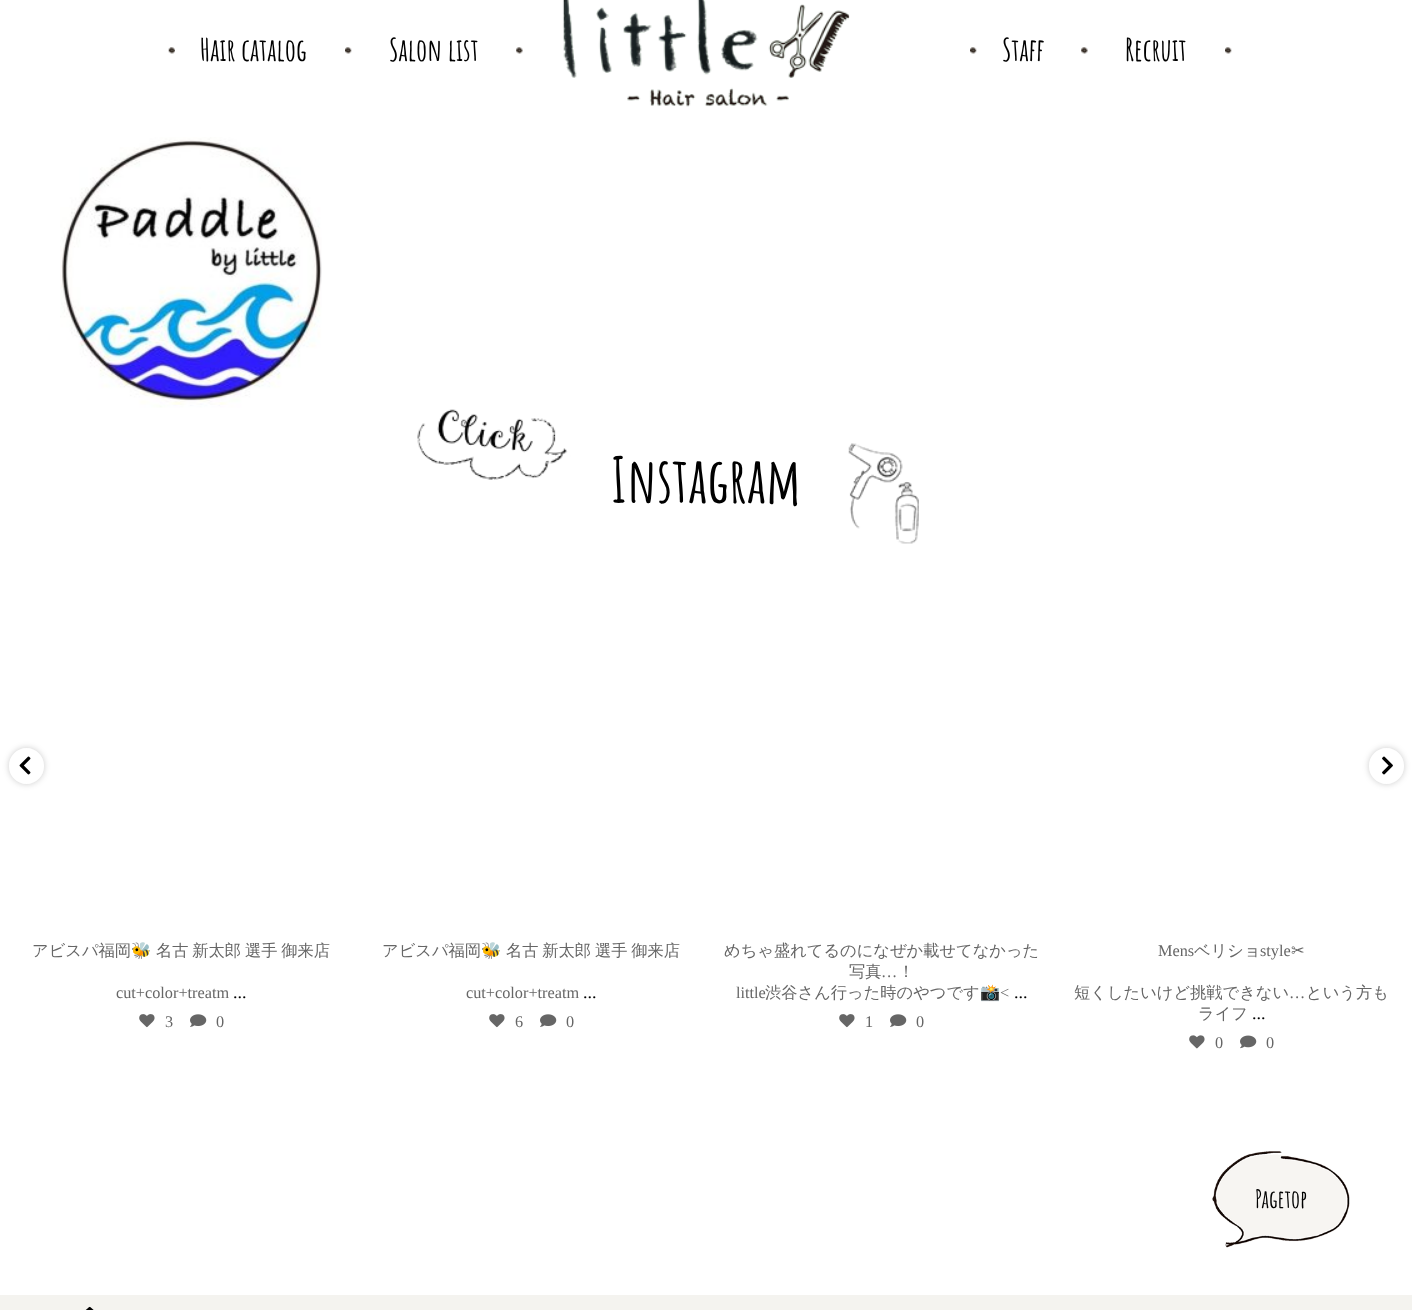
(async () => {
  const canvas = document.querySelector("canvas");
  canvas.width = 1412;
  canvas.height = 1310;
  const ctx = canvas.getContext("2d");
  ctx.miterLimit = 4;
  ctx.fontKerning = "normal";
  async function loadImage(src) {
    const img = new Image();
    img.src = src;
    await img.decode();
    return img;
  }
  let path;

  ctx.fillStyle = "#ffffff";
  ctx.fillRect(0, 0, 1412, 1310);
  ctx.drawImage(await loadImage("img/1.png"), 562, 0, 288, 107);
  ctx.drawImage(await loadImage("img/2.png"), 168, 47, 7, 7);
  ctx.drawImage(await loadImage("img/3.png"), 345, 47, 7, 7);
  ctx.drawImage(await loadImage("img/4.png"), 516, 47, 7, 7);
  ctx.drawImage(await loadImage("img/5.png"), 970, 47, 7, 7);
  ctx.drawImage(await loadImage("img/4.png"), 1081, 47, 7, 7);
  ctx.drawImage(await loadImage("img/3.png"), 1225, 47, 7, 7);
  ctx.drawImage(await loadImage("img/6.png"), 60, 137, 262, 271);
  ctx.drawImage(await loadImage("img/7.png"), 417, 409, 502, 135);
  ctx.save();
  path = new Path2D("M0 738H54V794H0ZM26.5 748C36 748 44 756 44 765.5V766.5C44 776 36 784 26.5 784C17 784 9 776 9 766.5V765.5C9 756 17 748 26.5 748Z");
  ctx.clip(path, "evenodd");
  ctx.fillStyle = "rgba(0, 0, 0, 0.2)";
  ctx.filter = "blur(3px)";
  ctx.beginPath();
  ctx.roundRect(9, 748, 35, 36, 17.5);
  ctx.fill();
  ctx.filter = "none";
  ctx.restore();
  ctx.fillStyle = "rgba(255, 255, 255, 0.3)";
  ctx.beginPath();
  ctx.roundRect(9, 748, 35, 36, 17.5);
  ctx.fill();
  ctx.drawImage(await loadImage("img/8.png"), 19, 756, 12, 19);
  ctx.save();
  path = new Path2D("M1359 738H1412V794H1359ZM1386.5 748C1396 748 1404 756 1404 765.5V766.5C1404 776 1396 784 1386.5 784C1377 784 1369 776 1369 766.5V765.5C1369 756 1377 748 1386.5 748Z");
  ctx.clip(path, "evenodd");
  ctx.fillStyle = "rgba(0, 0, 0, 0.2)";
  ctx.filter = "blur(3px)";
  ctx.beginPath();
  ctx.roundRect(1369, 748, 35, 36, 17.5);
  ctx.fill();
  ctx.filter = "none";
  ctx.restore();
  ctx.beginPath();
  ctx.roundRect(1369, 748, 35, 36, 17.5);
  ctx.fill();
  ctx.drawImage(await loadImage("img/9.png"), 1382, 756, 11, 19);
  ctx.drawImage(await loadImage("img/10.png"), 139, 1014, 16, 14);
  ctx.drawImage(await loadImage("img/11.png"), 190, 1014, 17, 13);
  ctx.drawImage(await loadImage("img/10.png"), 489, 1014, 16, 14);
  ctx.drawImage(await loadImage("img/11.png"), 540, 1014, 17, 13);
  ctx.drawImage(await loadImage("img/10.png"), 839, 1014, 16, 14);
  ctx.drawImage(await loadImage("img/11.png"), 890, 1014, 17, 13);
  ctx.drawImage(await loadImage("img/12.png"), 1189, 1035, 16, 14);
  ctx.drawImage(await loadImage("img/13.png"), 1240, 1035, 17, 14);
  ctx.drawImage(await loadImage("img/14.png"), 1212, 1151, 138, 97);
  ctx.fillStyle = "#f4f3ef";
  ctx.fillRect(0, 1295, 1412, 15);
  ctx.drawImage(await loadImage("img/15.png"), 85, 1306, 9, 4);
  ctx.font = "bold 31px Amatic SC";
  ctx.fillStyle = "#000000";
  for (const [text, x, y] of [
    ["Hair catalog", 200, 61],
    ["Salon list", 389, 61],
    ["Staff", 1002, 61],
    ["Recruit", 1125, 61],
  ]) {
    ctx.fillText(text, x, y);
  }
  ctx.font = "bold 62.5px Amatic SC";
  ctx.fillText("Instagram", 611, 503);
  ctx.font = "500 16.25px WenQuanYi Zen Hei";
  ctx.fillStyle = "#666666";
  ctx.fillText("アビスパ福岡", 32, 956);
  ctx.font = "16.25px Noto Color Emoji";
  ctx.fillText("🐝", 131, 956);
  ctx.wordSpacing = "-1px";
  ctx.font = "500 16.25px WenQuanYi Zen Hei";
  ctx.fillText("名古 新太郎 選手 御来店", 156, 956);
  ctx.wordSpacing = "0px";
  ctx.font = "16.25px Liberation Serif";
  ctx.fillText("cut+color+treatm", 116, 998);
  ctx.font = "18px Liberation Serif";
  ctx.fillStyle = "#000000";
  ctx.fillText("...", 233, 998);
  ctx.font = "16.25px Liberation Serif";
  ctx.fillStyle = "#666666";
  ctx.fillText("3", 165, 1027);
  ctx.fillText("0", 216, 1027);
  ctx.font = "500 16.25px WenQuanYi Zen Hei";
  ctx.fillText("アビスパ福岡", 382, 956);
  ctx.font = "16.25px Noto Color Emoji";
  ctx.fillText("🐝", 481, 956);
  ctx.wordSpacing = "-1px";
  ctx.font = "500 16.25px WenQuanYi Zen Hei";
  ctx.fillText("名古 新太郎 選手 御来店", 506, 956);
  ctx.wordSpacing = "0px";
  ctx.font = "16.25px Liberation Serif";
  ctx.fillText("cut+color+treatm", 466, 998);
  ctx.font = "18px Liberation Serif";
  ctx.fillStyle = "#000000";
  ctx.fillText("...", 583, 998);
  ctx.font = "16.25px Liberation Serif";
  ctx.fillStyle = "#666666";
  ctx.fillText("6", 515, 1027);
  ctx.fillText("0", 566, 1027);
  ctx.font = "500 16.25px WenQuanYi Zen Hei";
  ctx.fillText("めちゃ盛れてるのになぜか載せてなかった", 724, 956);
  ctx.fillText("写真", 849, 977);
  ctx.font = "16.25px Liberation Serif";
  ctx.fillText("…", 881, 977);
  ctx.font = "500 16.25px WenQuanYi Zen Hei";
  ctx.fillText("！", 898, 977);
  ctx.font = "16.25px Liberation Serif";
  ctx.fillText("little", 736, 998);
  ctx.font = "500 16.25px WenQuanYi Zen Hei";
  ctx.fillText("渋谷さん行った時のやつです", 765, 998);
  ctx.font = "16.25px Noto Color Emoji";
  ctx.fillText("📸", 980, 998);
  ctx.font = "16.25px Liberation Serif";
  ctx.fillText("<", 1000, 998);
  ctx.font = "18px Liberation Serif";
  ctx.fillStyle = "#000000";
  ctx.fillText("...", 1014, 998);
  ctx.font = "16.25px Liberation Serif";
  ctx.fillStyle = "#666666";
  for (const [text, x, y] of [
    ["1", 865, 1027],
    ["0", 916, 1027],
    ["Mens", 1158, 956],
  ]) {
    ctx.fillText(text, x, y);
  }
  ctx.font = "500 16.25px WenQuanYi Zen Hei";
  ctx.fillText("ベリショ", 1194, 956);
  ctx.font = "16.25px Liberation Serif";
  ctx.fillText("style", 1260, 956);
  ctx.font = "16.25px DejaVu Sans";
  ctx.fillText("✂", 1291, 956);
  ctx.font = "500 16.25px WenQuanYi Zen Hei";
  ctx.fillText("短くしたいけど挑戦できない", 1074, 998);
  ctx.font = "16.25px Liberation Serif";
  ctx.fillText("…", 1289, 998);
  ctx.font = "500 16.25px WenQuanYi Zen Hei";
  ctx.fillText("という方も", 1306, 998);
  ctx.fillText("ライフ", 1198, 1019);
  ctx.font = "18px Liberation Serif";
  ctx.fillStyle = "#000000";
  ctx.fillText("...", 1252, 1019);
  ctx.font = "16.25px Liberation Serif";
  ctx.fillStyle = "#666666";
  ctx.fillText("0", 1215, 1048);
  ctx.fillText("0", 1266, 1048);
  ctx.font = "bold 25px Amatic SC";
  ctx.fillStyle = "#000000";
  ctx.fillText("Pagetop", 1255, 1208);
})();
